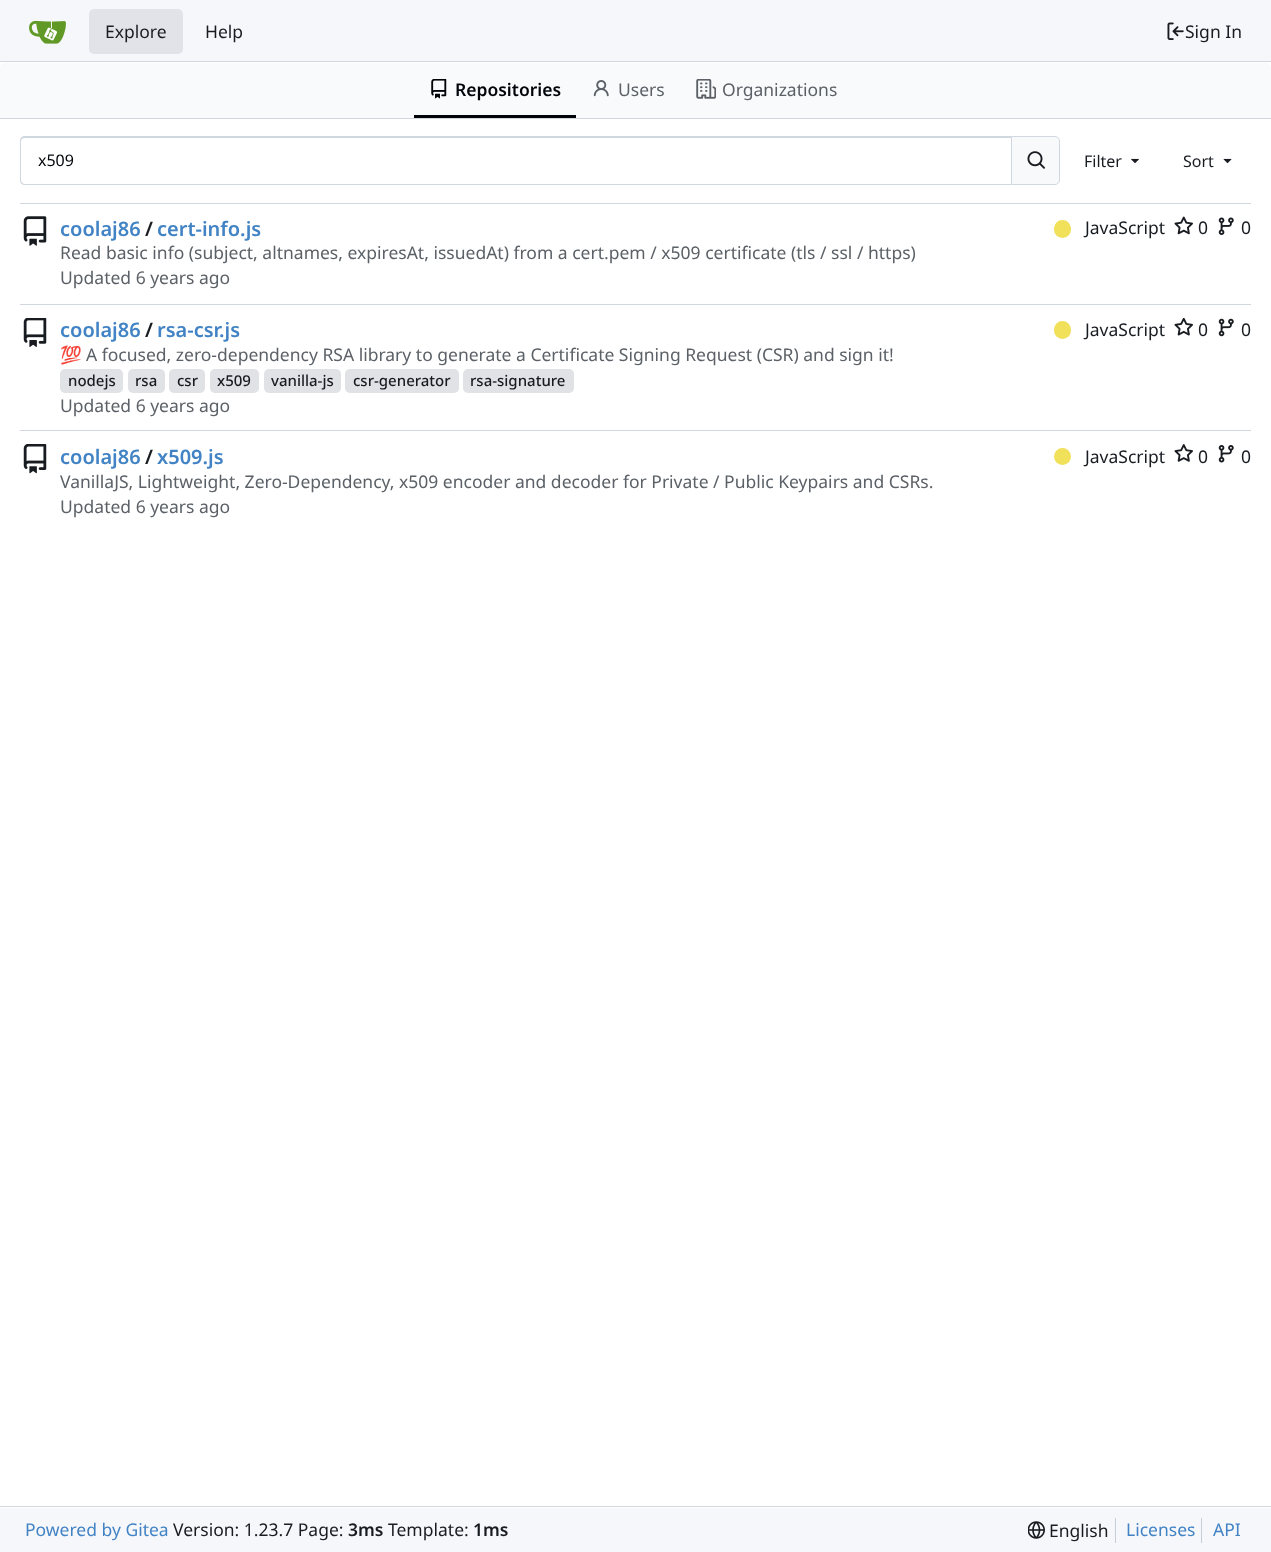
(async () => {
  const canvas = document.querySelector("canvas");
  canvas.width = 1271;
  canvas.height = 1552;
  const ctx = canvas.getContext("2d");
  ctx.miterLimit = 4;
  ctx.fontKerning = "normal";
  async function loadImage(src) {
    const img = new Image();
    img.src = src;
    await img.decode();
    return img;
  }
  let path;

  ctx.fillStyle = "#ffffff";
  ctx.fillRect(0, 0, 1271, 1552);
  ctx.fillStyle = "#f6f7fa";
  ctx.fillRect(0, 0, 1271, 61);
  ctx.fillStyle = "#d0d7de";
  ctx.fillRect(0, 61, 1271, 1);
  ctx.drawImage(await loadImage("img/1.png"), 29, 20, 37, 24);
  ctx.fillStyle = "#e2e3e8";
  ctx.beginPath();
  ctx.roundRect(89, 9, 94, 45, 5);
  ctx.fill();
  ctx.drawImage(await loadImage("img/2.png"), 1167, 22, 17, 18);
  ctx.fillStyle = "#f9fafb";
  ctx.beginPath();
  ctx.roundRect(0, 63, 1271, 56, [5, 5, 0, 0]);
  ctx.fill();
  ctx.fillStyle = "#d0d7de";
  ctx.fillRect(0, 118, 1271, 1);
  ctx.fillStyle = "#01050a";
  ctx.fillRect(414, 115, 162, 3);
  ctx.drawImage(await loadImage("img/3.png"), 431, 79, 16, 20);
  ctx.drawImage(await loadImage("img/4.png"), 593, 80, 16, 17);
  ctx.drawImage(await loadImage("img/5.png"), 696, 79, 20, 20);
  ctx.fillStyle = "#d0d7de";
  path = new Path2D("M25 136H1011V185H25C22 185 20 183 20 180V141C20 138 22 136 25 136ZM25 138H1011V184H25C23 184 21 182 21 180V141C21 139 23 138 25 138Z");
  ctx.fill(path, "evenodd");
  ctx.fillStyle = "#f8f9fb";
  ctx.beginPath();
  ctx.roundRect(1011.5, 136.5, 48, 48, [0, 4.5, 4.5, 0]);
  ctx.fill();
  ctx.strokeStyle = "#d0d7de";
  ctx.stroke();
  ctx.drawImage(await loadImage("img/6.png"), 1027, 151, 18, 18);
  ctx.drawImage(await loadImage("img/7.png"), 1131, 158, 8, 6);
  ctx.drawImage(await loadImage("img/8.png"), 1223, 158, 9, 6);
  ctx.fillStyle = "#d0d7de";
  ctx.fillRect(20, 203, 1231, 1);
  ctx.drawImage(await loadImage("img/9.png"), 23, 216, 24, 30);
  ctx.fillStyle = "#f1e05a";
  ctx.beginPath();
  ctx.roundRect(1054, 220, 17, 18, 8.5);
  ctx.fill();
  ctx.drawImage(await loadImage("img/10.png"), 1174, 216, 19, 19);
  ctx.drawImage(await loadImage("img/11.png"), 1218, 217, 16, 18);
  ctx.fillStyle = "#d0d7de";
  ctx.fillRect(20, 304, 1231, 1);
  ctx.drawImage(await loadImage("img/12.png"), 23, 318, 24, 29);
  ctx.fillStyle = "#f1e05a";
  ctx.beginPath();
  ctx.roundRect(1054, 321, 17, 18, 8.5);
  ctx.fill();
  ctx.drawImage(await loadImage("img/13.png"), 1174, 318, 19, 18);
  ctx.drawImage(await loadImage("img/14.png"), 1218, 318, 16, 19);
  ctx.fillStyle = "#e0e2e5";
  ctx.beginPath();
  ctx.roundRect(60, 369, 63, 24, 5);
  ctx.fill();
  ctx.beginPath();
  ctx.roundRect(128, 369, 37, 24, 5);
  ctx.fill();
  ctx.beginPath();
  ctx.roundRect(169, 369, 36, 24, 5);
  ctx.fill();
  ctx.beginPath();
  ctx.roundRect(210, 369, 49, 24, 5);
  ctx.fill();
  ctx.beginPath();
  ctx.roundRect(264, 369, 77, 24, 5);
  ctx.fill();
  ctx.beginPath();
  ctx.roundRect(345, 369, 114, 24, 5);
  ctx.fill();
  ctx.beginPath();
  ctx.roundRect(463, 369, 111, 24, 5);
  ctx.fill();
  ctx.fillStyle = "#d0d7de";
  ctx.fillRect(20, 430, 1231, 1);
  ctx.drawImage(await loadImage("img/15.png"), 23, 444, 24, 30);
  ctx.fillStyle = "#f1e05a";
  ctx.beginPath();
  ctx.arc(1062.5, 456.5, 8.5, 0, Math.PI * 2);
  ctx.fill();
  ctx.drawImage(await loadImage("img/16.png"), 1174, 444, 19, 18);
  ctx.drawImage(await loadImage("img/17.png"), 1218, 445, 16, 18);
  ctx.fillStyle = "#f6f7fa";
  ctx.fillRect(0, 1508, 1271, 44);
  ctx.fillStyle = "#d0d7de";
  ctx.fillRect(0, 1506, 1271, 1);
  ctx.drawImage(await loadImage("img/18.png"), 1028, 1521, 17, 18);
  ctx.fillStyle = "#c7ced5";
  ctx.fillRect(1115, 1518, 1, 25);
  ctx.fillRect(1201, 1518, 1, 25);
  ctx.font = "17.5px Noto Sans";
  ctx.fillStyle = "#181c21";
  for (const [text, x, y] of [
    ["Explore", 105, 38],
    ["Help", 205, 38],
    ["Sign In", 1185, 38],
  ]) {
    ctx.fillText(text, x, y);
  }
  ctx.font = "600 17.5px Noto Sans";
  ctx.fillStyle = "#01050a";
  ctx.fillText("Repositories", 455, 96);
  ctx.font = "17.5px Noto Sans";
  ctx.fillStyle = "#5b6167";
  ctx.fillText("Users", 618, 96);
  ctx.fillText("Organizations", 722, 96);
  ctx.font = "16px Noto Sans";
  ctx.fillStyle = "#01050a";
  ctx.fillText("x509", 38, 166);
  ctx.fillStyle = "#181c21";
  ctx.fillText("Filter", 1084, 167);
  ctx.fillText("Sort", 1183, 167);
  ctx.font = "600 20px Noto Sans";
  ctx.fillStyle = "#4183c4";
  ctx.fillText("coolaj86", 60, 236);
  ctx.fillStyle = "#181c21";
  ctx.fillText("/", 145, 236);
  ctx.fillStyle = "#4183c4";
  ctx.fillText("cert-info.js", 157, 236);
  ctx.font = "17.5px Noto Sans";
  ctx.fillStyle = "#181c21";
  for (const [text, x, y] of [
    ["JavaScript", 1085, 234],
    ["0", 1198, 234],
    ["0", 1241, 234],
  ]) {
    ctx.fillText(text, x, y);
  }
  ctx.fillStyle = "#5b6167";
  ctx.fillText("Read basic info (subject, altnames, expiresAt, issuedAt) from a cert.pem / x509 certificate (tls / ssl / https)", 60, 259);
  ctx.fillText("Updated 6 years ago", 60, 284);
  ctx.font = "600 20px Noto Sans";
  ctx.fillStyle = "#4183c4";
  ctx.fillText("coolaj86", 60, 337);
  ctx.fillStyle = "#181c21";
  ctx.fillText("/", 145, 337);
  ctx.fillStyle = "#4183c4";
  ctx.fillText("rsa-csr.js", 157, 337);
  ctx.font = "17.5px Noto Sans";
  ctx.fillStyle = "#181c21";
  for (const [text, x, y] of [
    ["JavaScript", 1085, 336],
    ["0", 1198, 336],
    ["0", 1241, 336],
  ]) {
    ctx.fillText(text, x, y);
  }
  ctx.font = "17.5px Noto Color Emoji";
  ctx.fillStyle = "#5b6167";
  ctx.fillText("💯", 60, 361);
  ctx.font = "17.5px Noto Sans";
  ctx.fillText("A focused, zero-dependency RSA library to generate a Certificate Signing Request (CSR) and sign it!", 86, 361);
  ctx.font = "500 15px Noto Sans";
  ctx.fillStyle = "#181c21";
  for (const [text, x, y] of [
    ["nodejs", 68, 386],
    ["rsa", 135, 386],
    ["csr", 177, 386],
    ["x509", 217, 386],
    ["vanilla-js", 271, 386],
    ["csr-generator", 353, 386],
    ["rsa-signature", 470, 386],
  ]) {
    ctx.fillText(text, x, y);
  }
  ctx.font = "17.5px Noto Sans";
  ctx.fillStyle = "#5b6167";
  ctx.fillText("Updated 6 years ago", 60, 412);
  ctx.font = "600 20px Noto Sans";
  ctx.fillStyle = "#4183c4";
  ctx.fillText("coolaj86", 60, 464);
  ctx.fillStyle = "#181c21";
  ctx.fillText("/", 145, 464);
  ctx.fillStyle = "#4183c4";
  ctx.fillText("x509.js", 157, 464);
  ctx.font = "17.5px Noto Sans";
  ctx.fillStyle = "#181c21";
  for (const [text, x, y] of [
    ["JavaScript", 1085, 463],
    ["0", 1198, 463],
    ["0", 1241, 463],
  ]) {
    ctx.fillText(text, x, y);
  }
  ctx.fillStyle = "#5b6167";
  ctx.fillText("VanillaJS, Lightweight, Zero-Dependency, x509 encoder and decoder for Private / Public Keypairs and CSRs.", 60, 488);
  ctx.fillText("Updated 6 years ago", 60, 513);
  ctx.fillStyle = "#4183c4";
  ctx.fillText("Powered by Gitea", 25, 1536);
  ctx.fillStyle = "#181c21";
  ctx.fillText("Version: 1.23.7 Page:", 173, 1536);
  ctx.font = "600 17.5px Noto Sans";
  ctx.fillText("3ms", 348, 1536);
  ctx.font = "17.5px Noto Sans";
  ctx.fillText("Template:", 388, 1536);
  ctx.font = "600 17.5px Noto Sans";
  ctx.fillText("1ms", 473, 1536);
  ctx.font = "17.5px Noto Sans";
  ctx.fillText("English", 1049, 1537);
  ctx.fillStyle = "#4183c4";
  ctx.fillText("Licenses", 1126, 1536);
  ctx.fillText("API", 1213, 1536);
})();
